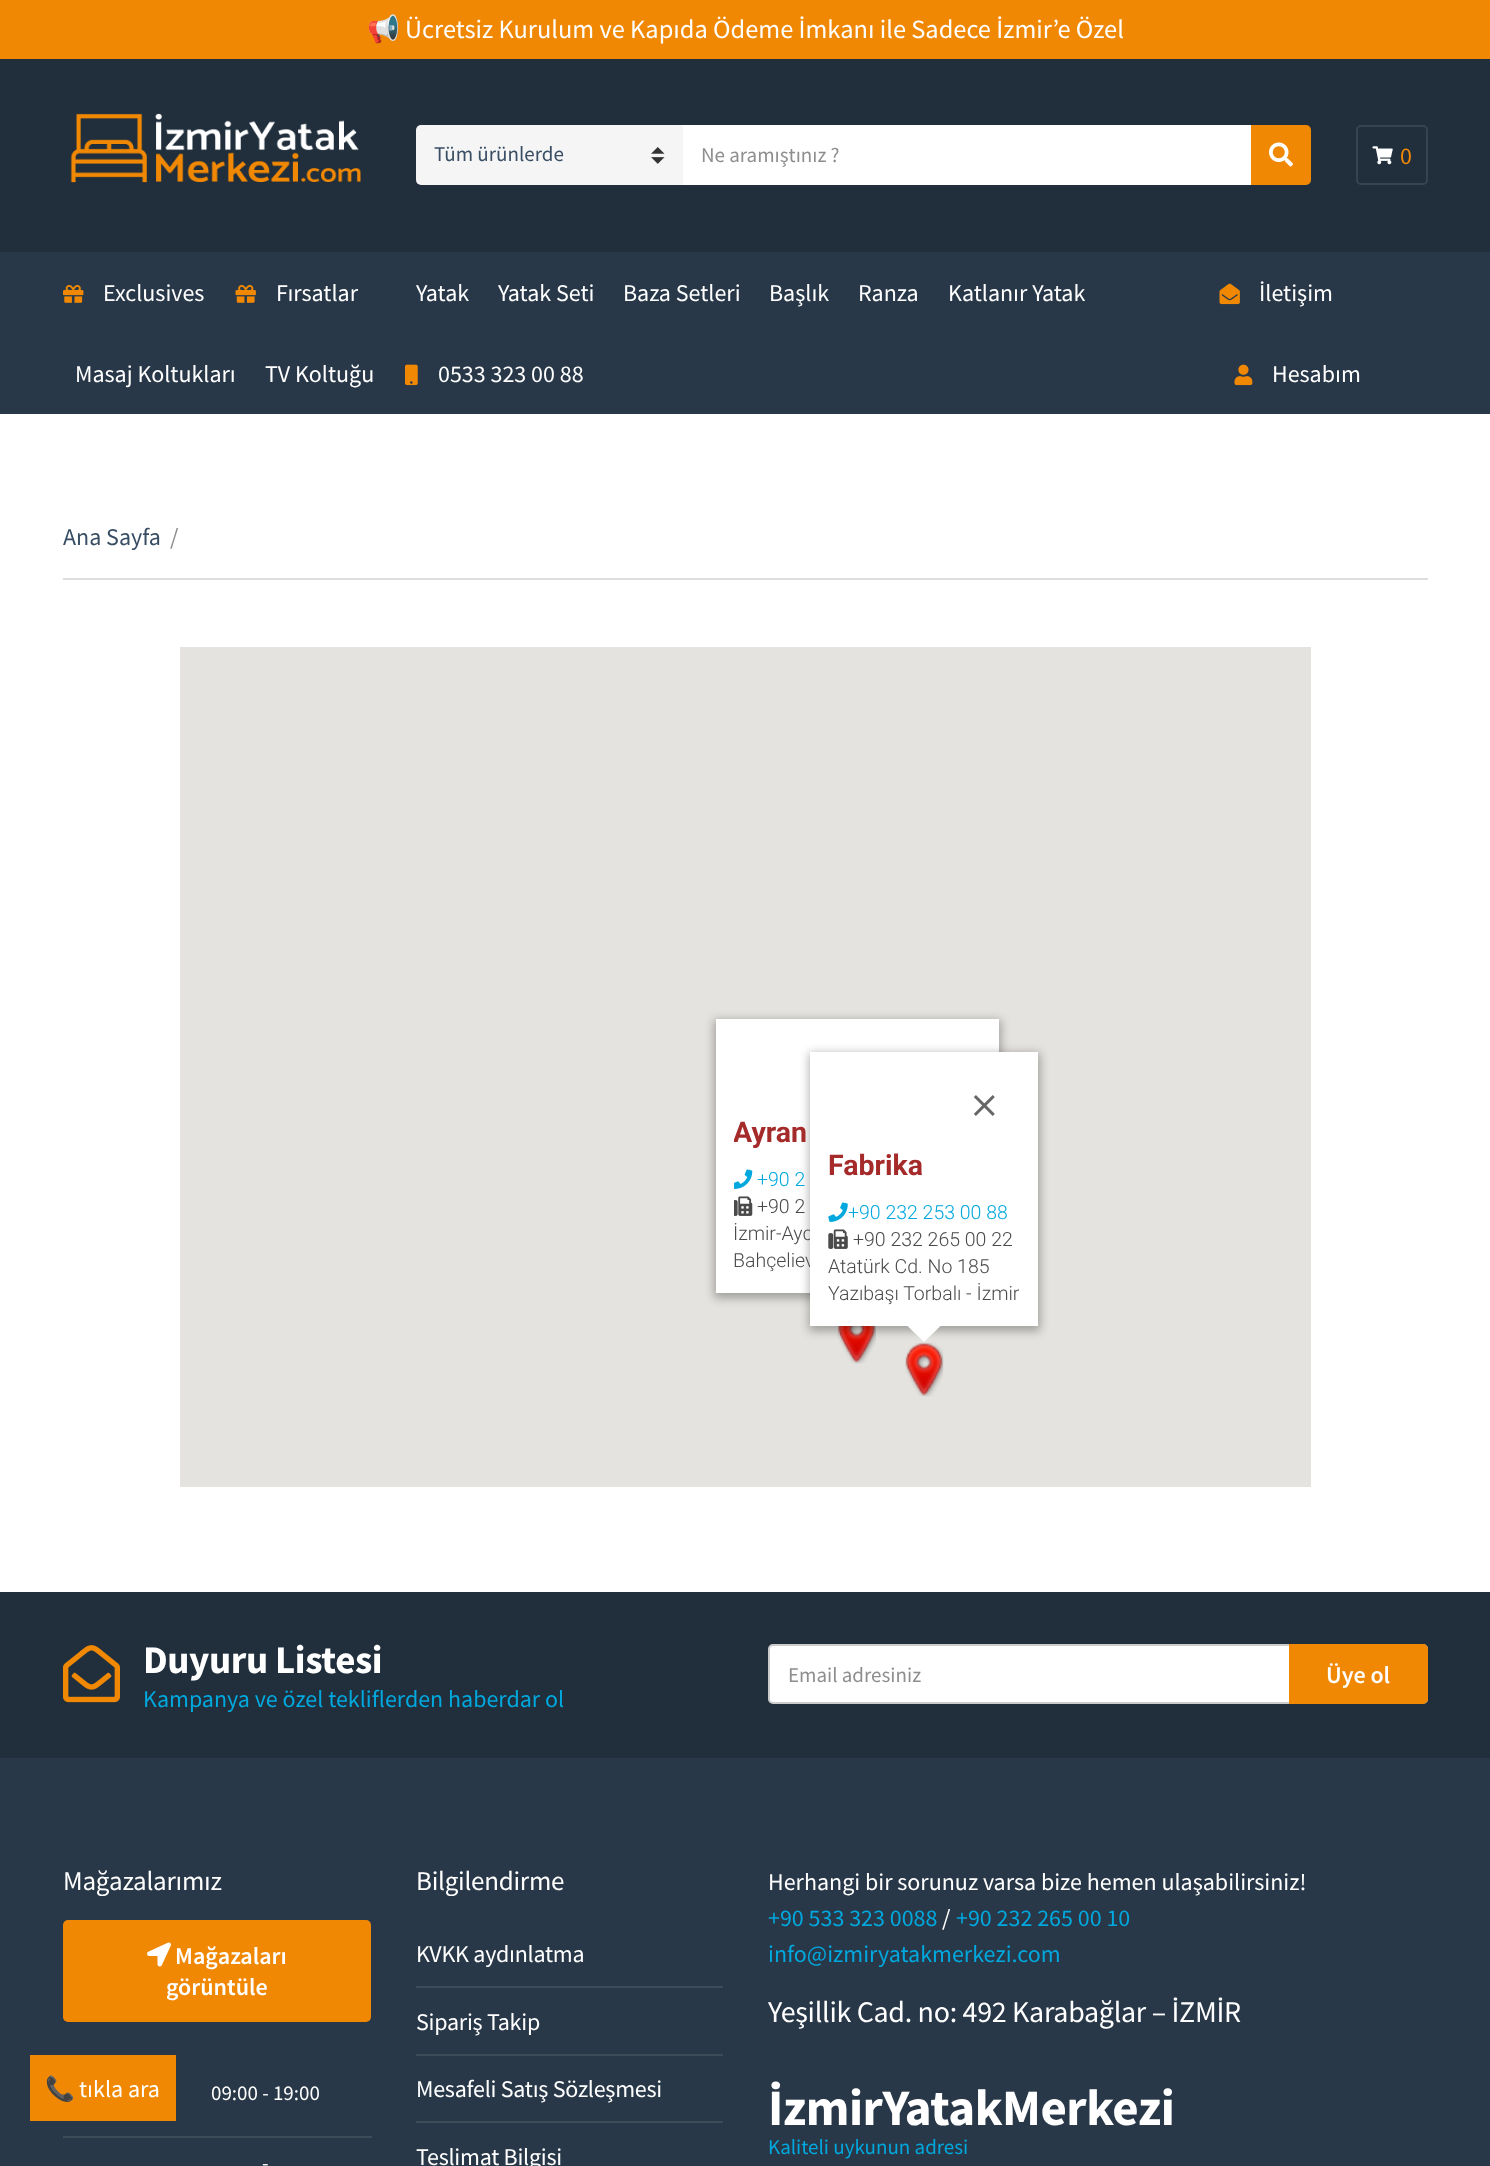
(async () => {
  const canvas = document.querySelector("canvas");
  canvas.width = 1490;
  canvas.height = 2166;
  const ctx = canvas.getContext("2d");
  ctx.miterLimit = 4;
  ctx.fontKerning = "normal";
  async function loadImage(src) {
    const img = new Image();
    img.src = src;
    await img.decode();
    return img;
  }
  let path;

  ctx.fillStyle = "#ffffff";
  ctx.fillRect(0, 0, 1490, 2166);
  ctx.fillStyle = "#f08804";
  ctx.fillRect(0, 0, 1490, 59);
  ctx.fillStyle = "#212f3d";
  ctx.fillRect(0, 59, 1490, 193);
  ctx.drawImage(await loadImage("img/1.png"), 70, 113, 291, 70);
  ctx.fillStyle = "#f5f5f5";
  ctx.beginPath();
  ctx.roundRect(416, 125, 267, 60, [5, 0, 0, 5]);
  ctx.fill();
  ctx.drawImage(await loadImage("img/2.png"), 651, 147, 14, 17);
  ctx.fillStyle = "#ffffff";
  ctx.fillRect(683, 125, 568, 60);
  ctx.fillStyle = "#f08804";
  ctx.beginPath();
  ctx.roundRect(1251, 125, 60, 60, [0, 5, 5, 0]);
  ctx.fill();
  ctx.drawImage(await loadImage("img/3.png"), 1269, 142, 24, 25);
  ctx.beginPath();
  ctx.roundRect(1357, 126, 70, 58, 4);
  ctx.strokeStyle = "#374450";
  ctx.lineWidth = 2;
  ctx.stroke();
  ctx.drawImage(await loadImage("img/4.png"), 1372, 146, 21, 19);
  ctx.fillStyle = "#283848";
  ctx.fillRect(0, 252, 1490, 162);
  ctx.drawImage(await loadImage("img/5.png"), 63, 284, 21, 19);
  ctx.drawImage(await loadImage("img/6.png"), 235, 284, 21, 19);
  ctx.drawImage(await loadImage("img/7.png"), 405, 364, 13, 22);
  ctx.drawImage(await loadImage("img/8.png"), 1219, 283, 21, 22);
  ctx.drawImage(await loadImage("img/9.png"), 1234, 364, 19, 22);
  ctx.fillStyle = "#dddddd";
  ctx.fillRect(63, 578, 1365, 2);
  ctx.fillStyle = "#e5e3df";
  ctx.fillRect(180, 647, 1131, 840);
  ctx.fillStyle = "rgba(0, 0, 0, 0.3)";
  ctx.filter = "blur(5px)";
  ctx.beginPath();
  ctx.rect(714, 1020, 287, 278);
  ctx.fill();
  ctx.filter = "none";
  ctx.fillStyle = "#ffffff";
  ctx.fillRect(716, 1019, 283, 274);
  ctx.drawImage(await loadImage("img/10.png"), 734, 1169, 19, 20);
  ctx.drawImage(await loadImage("img/11.png"), 734, 1196, 19, 20);
  ctx.drawImage(await loadImage("img/15.png"), 837, 1326, 39, 38);
  ctx.drawImage(await loadImage("img/16.png"), 905, 1342, 39, 55);
  ctx.fillStyle = "rgba(0, 0, 0, 0.3)";
  ctx.filter = "blur(5px)";
  ctx.beginPath();
  ctx.rect(809, 1053, 231, 278);
  ctx.fill();
  ctx.filter = "none";
  ctx.fillStyle = "#212f3d";
  ctx.fillRect(0, 1592, 1490, 166);
  ctx.drawImage(await loadImage("img/17.png"), 63, 1645, 57, 58);
  ctx.fillStyle = "#ffffff";
  ctx.beginPath();
  ctx.roundRect(769, 1645, 658, 58, 4);
  ctx.fill();
  ctx.strokeStyle = "#cccccc";
  ctx.stroke();
  ctx.fillStyle = "#f08804";
  ctx.beginPath();
  ctx.roundRect(1289, 1644, 139, 60, [0, 5, 5, 0]);
  ctx.fill();
  ctx.fillStyle = "#283848";
  ctx.fillRect(0, 1758, 1490, 408);
  ctx.fillStyle = "#f08804";
  ctx.beginPath();
  ctx.roundRect(63, 1920, 308, 102, 5);
  ctx.fill();
  ctx.drawImage(await loadImage("img/18.png"), 147, 1942, 24, 25);
  for (const [x, y, w, h, color] of [
    [63, 2136, 309, 2, "#3e4c5a"],
    [416, 1986, 307, 2, "#3e4c5a"],
    [416, 2054, 307, 2, "#3e4c5a"],
    [416, 2121, 307, 2, "#3e4c5a"],
    [30, 2055, 146, 66, "#f08804"],
  ]) {
    ctx.fillStyle = color;
    ctx.fillRect(x, y, w, h);
  }
  ctx.font = "26.4px Noto Color Emoji";
  ctx.fillStyle = "#ffffff";
  ctx.fillText("📢", 367, 38);
  ctx.font = "26.4px Source Sans Pro";
  ctx.fillText("Ücretsiz Kurulum ve Kapıda Ödeme İmkanı ile Sadece İzmir’e Özel", 405, 38);
  ctx.font = "21px Source Sans Pro";
  ctx.fillStyle = "#394e64";
  ctx.fillText("Tüm ürünlerde", 434, 161);
  ctx.fillStyle = "#8e8e8e";
  ctx.fillText("Ne aramıştınız ?", 701, 162);
  ctx.font = "24px Source Sans Pro";
  ctx.fillStyle = "#f08804";
  ctx.fillText("0", 1400, 164);
  ctx.fillStyle = "#ffffff";
  for (const [text, x, y] of [
    ["Exclusives", 103, 301],
    ["Fırsatlar", 276, 301],
    ["Yatak", 416, 301],
    ["Yatak Seti", 498, 301],
    ["Baza Setleri", 623, 301],
    ["Başlık", 769, 301],
    ["Ranza", 858, 301],
    ["Katlanır Yatak", 948, 301],
    ["Masaj Koltukları", 75, 382],
    ["TV Koltuğu", 265, 382],
    ["0533 323 00 88", 438, 382],
    ["İletişim", 1259, 301],
    ["Hesabım", 1272, 382],
  ]) {
    ctx.fillText(text, x, y);
  }
  ctx.fillStyle = "#394e64";
  ctx.fillText("Ana Sayfa", 63, 545);
  ctx.fillStyle = "#8e8e8e";
  ctx.fillText("/", 170, 545);
  ctx.save();
  ctx.beginPath();
  ctx.rect(734, 1109, 247, 166);
  ctx.clip();
  ctx.font = "bold 28.5px Roboto";
  ctx.fillStyle = "#a52a2a";
  ctx.fillText("Ayran", 733, 1142);
  ctx.restore();
  ctx.font = "300 19.5px Roboto";
  ctx.fillStyle = "#00a8de";
  ctx.fillText("+90 2", 757, 1186);
  ctx.fillStyle = "#4a4a4a";
  for (const [text, x, y] of [
    ["+90 2", 757, 1213],
    ["İzmir-Ayd", 733, 1240],
    ["Bahçeliev", 733, 1267],
  ]) {
    ctx.fillText(text, x, y);
  }
  ctx.fillStyle = "#ffffff";
  ctx.fillRect(810, 1052, 228, 274);
  ctx.drawImage(await loadImage("img/12.png"), 973, 1095, 22, 21);
  ctx.font = "bold 28.5px Roboto";
  ctx.fillStyle = "#a52a2a";
  ctx.fillText("Fabrika", 828, 1175);
  ctx.drawImage(await loadImage("img/13.png"), 828, 1202, 20, 20);
  ctx.font = "300 19.5px Roboto";
  ctx.fillStyle = "#00a8de";
  ctx.fillText("+90 232 253 00 88", 848, 1219);
  ctx.drawImage(await loadImage("img/14.png"), 828, 1229, 20, 20);
  ctx.fillStyle = "#4a4a4a";
  for (const [text, x, y] of [
    ["+90 232 265 00 22", 853, 1246],
    ["Atatürk Cd. No 185", 828, 1273],
    ["Yazıbaşı Torbalı - İzmir", 828, 1300],
  ]) {
    ctx.fillText(text, x, y);
  }
  ctx.fillStyle = "#ffffff";
  path = new Path2D("M941.5 1325H906.5L924 1342Z");
  ctx.fill(path);
  ctx.letterSpacing = "-0.4px";
  ctx.font = "bold 39px Source Sans Pro";
  ctx.fillText("Duyuru Listesi", 143, 1673);
  ctx.letterSpacing = "0px";
  ctx.font = "24px Source Sans Pro";
  ctx.fillStyle = "#00a8de";
  ctx.fillText("Kampanya ve özel tekliflerden haberdar ol", 143, 1707);
  ctx.font = "21px Source Sans Pro";
  ctx.fillStyle = "#8e8e8e";
  ctx.fillText("Email adresiniz", 788, 1682);
  ctx.font = "600 24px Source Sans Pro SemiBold";
  ctx.fillStyle = "#ffffff";
  ctx.fillText("Üye ol", 1326, 1683);
  ctx.letterSpacing = "-0.25px";
  ctx.font = "27px Source Sans Pro";
  ctx.fillText("Mağazalarımız", 63, 1890);
  ctx.letterSpacing = "0px";
  ctx.font = "600 24px Source Sans Pro SemiBold";
  ctx.fillText("Mağazaları", 175, 1964);
  ctx.fillText("görüntüle", 166, 1995);
  ctx.font = "21px Source Sans Pro";
  ctx.fillText("09:00 - 19:00", 211, 2100);
  ctx.fillText("-", 262, 2170);
  ctx.letterSpacing = "-0.25px";
  ctx.font = "27px Source Sans Pro";
  ctx.fillText("Bilgilendirme", 416, 1890);
  ctx.font = "24px Source Sans Pro";
  for (const [text, x, y] of [
    ["KVKK aydınlatma", 416, 1962],
    ["Sipariş Takip", 416, 2030],
    ["Mesafeli Satış Sözleşmesi", 416, 2097],
    ["Teslimat Bilgisi", 416, 2165],
  ]) {
    ctx.fillText(text, x, y);
  }
  ctx.letterSpacing = "0px";
  ctx.fillText("Herhangi bir sorunuz varsa bize hemen ulaşabilirsiniz!", 768, 1890);
  ctx.fillStyle = "#00a8de";
  ctx.fillText("+90 533 323 0088", 768, 1926);
  ctx.fillStyle = "#ffffff";
  ctx.fillText("/", 942, 1926);
  ctx.fillStyle = "#00a8de";
  ctx.fillText("+90 232 265 00 10", 956, 1926);
  ctx.fillText("info@izmiryatakmerkezi.com", 768, 1962);
  ctx.letterSpacing = "-0.3px";
  ctx.font = "30px Source Sans Pro";
  ctx.fillStyle = "#ffffff";
  ctx.fillText("Yeşillik Cad. no: 492 Karabağlar – İZMİR", 768, 2022);
  ctx.letterSpacing = "-0.5px";
  ctx.font = "bold 51px Source Sans Pro";
  ctx.fillText("İzmirYatakMerkezi", 768, 2125);
  ctx.letterSpacing = "0px";
  ctx.font = "21px Source Sans Pro";
  ctx.fillStyle = "#00a8de";
  ctx.fillText("Kaliteli uykunun adresi", 768, 2154);
  ctx.font = "24px Noto Color Emoji";
  ctx.fillStyle = "#ffffff";
  ctx.fillText("📞", 45, 2097);
  ctx.font = "24px Source Sans Pro";
  ctx.fillText("tıkla ara", 79, 2097);
})();
